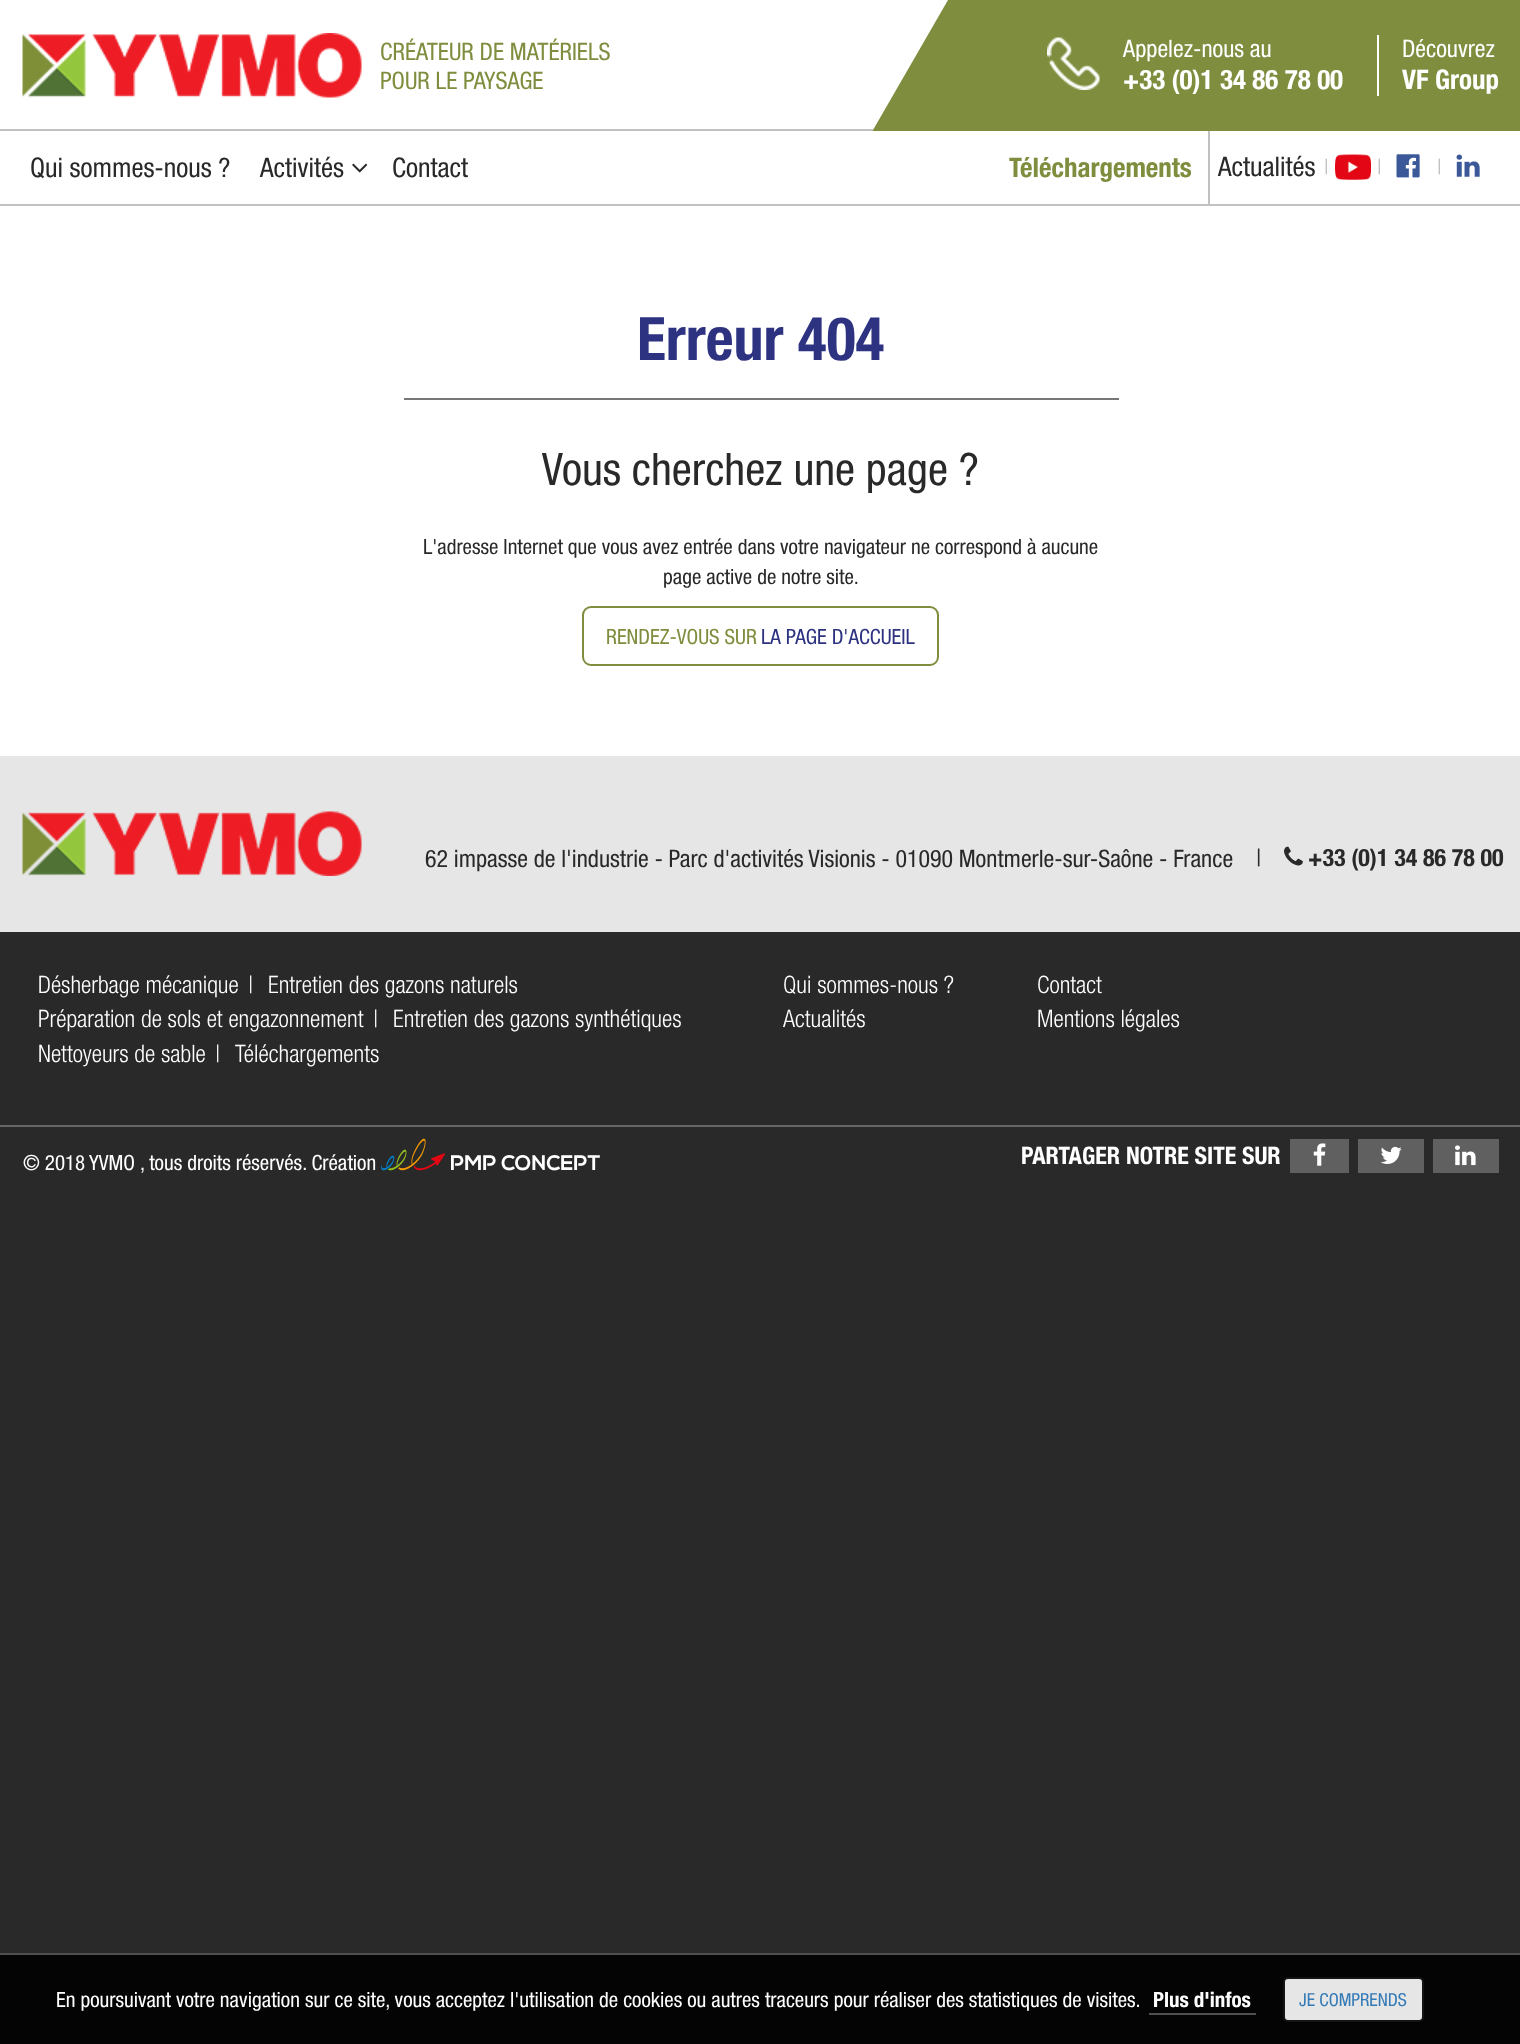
(async () => {
  const canvas = document.querySelector("canvas");
  canvas.width = 1520;
  canvas.height = 2044;
  const ctx = canvas.getContext("2d");
  ctx.miterLimit = 4;
  ctx.fontKerning = "normal";
  async function loadImage(src) {
    const img = new Image();
    img.src = src;
    await img.decode();
    return img;
  }
  let path;

  ctx.fillStyle = "#292929";
  ctx.fillRect(0, 0, 1520, 2044);
  for (const [x, y, w, h, color] of [
    [0, 0, 1520, 756, "#ffffff"],
    [0, 129, 873, 2, "#c1c1c1"],
    [873, 0, 647, 131, "#7e8e3e"],
  ]) {
    ctx.fillStyle = color;
    ctx.fillRect(x, y, w, h);
  }
  ctx.fillStyle = "#ffffff";
  path = new Path2D("M873 0H948L873 130Z");
  ctx.fill(path);
  ctx.drawImage(await loadImage("img/1.png"), 22, 33, 340, 65);
  ctx.drawImage(await loadImage("img/2.png"), 1047, 37, 53, 53);
  ctx.fillRect(1377, 35, 2, 61);
  ctx.fillStyle = "#c1c1c1";
  ctx.fillRect(0, 204, 1520, 2);
  ctx.drawImage(await loadImage("img/3.png"), 352, 163, 16, 10);
  ctx.fillRect(1208, 131, 2, 75);
  ctx.drawImage(await loadImage("img/4.png"), 1335, 154, 36, 26);
  ctx.drawImage(await loadImage("img/5.png"), 1396, 154, 24, 24);
  ctx.drawImage(await loadImage("img/6.png"), 1456, 154, 24, 23);
  ctx.fillStyle = "#777777";
  ctx.fillRect(404, 398, 715, 2);
  ctx.beginPath();
  ctx.roundRect(583, 607, 355, 58, 8);
  ctx.strokeStyle = "#7e8e3e";
  ctx.lineWidth = 2;
  ctx.stroke();
  ctx.fillStyle = "#e6e6e6";
  ctx.fillRect(0, 756, 1520, 176);
  ctx.drawImage(await loadImage("img/7.png"), 22, 811, 340, 65);
  ctx.drawImage(await loadImage("img/8.png"), 1284, 846, 19, 20);
  ctx.fillStyle = "#666666";
  ctx.fillRect(0, 1125, 1520, 2);
  ctx.drawImage(await loadImage("img/12.png"), 381, 1155, 14, 16);
  ctx.drawImage(await loadImage("img/9.png"), 388, 1149, 19, 22);
  ctx.drawImage(await loadImage("img/10.png"), 398, 1138, 28, 33);
  ctx.drawImage(await loadImage("img/11.png"), 413, 1153, 32, 18);
  ctx.fillStyle = "#606060";
  ctx.fillRect(1290, 1139, 59, 34);
  ctx.drawImage(await loadImage("img/13.png"), 1313, 1143, 13, 23);
  ctx.fillRect(1358, 1139, 66, 34);
  ctx.drawImage(await loadImage("img/14.png"), 1380, 1146, 22, 18);
  ctx.fillRect(1433, 1139, 66, 34);
  ctx.drawImage(await loadImage("img/15.png"), 1455, 1145, 21, 21);
  for (const [x, y, w, h, color] of [
    [0, 1955, 1520, 89, "#040404"],
    [0, 1953, 1520, 2, "#4f4f4f"],
    [1149, 2013, 107, 2, "#4f4f4f"],
  ]) {
    ctx.fillStyle = color;
    ctx.fillRect(x, y, w, h);
  }
  ctx.fillStyle = "#e6e6e6";
  ctx.beginPath();
  ctx.roundRect(1284, 1978, 139, 43, 4);
  ctx.fill();
  ctx.strokeStyle = "#141414";
  ctx.stroke();
  ctx.font = "24px Helvetica Neue";
  ctx.fillStyle = "#7e8e3e";
  ctx.fillText("CRÉATEUR DE MATÉRIELS", 380, 60);
  ctx.fillText("POUR LE PAYSAGE", 380, 89);
  ctx.fillStyle = "#ffffff";
  ctx.fillText("Appelez-nous au", 1123, 57);
  ctx.font = "bold 27px Helvetica Neue";
  ctx.fillText("+33 (0)1 34 86 78 00", 1123, 89);
  ctx.font = "24px Helvetica Neue";
  ctx.fillText("Découvrez", 1402, 57);
  ctx.font = "bold 27px Helvetica Neue";
  ctx.fillText("VF Group", 1402, 89);
  ctx.font = "27px Helvetica Neue";
  ctx.fillStyle = "#292929";
  for (const [text, x, y] of [
    ["Qui sommes-nous ?", 30, 177],
    ["Activités", 260, 177],
    ["Contact", 392, 177],
  ]) {
    ctx.fillText(text, x, y);
  }
  ctx.font = "bold 27px Helvetica Neue";
  ctx.fillStyle = "#7e8e3e";
  ctx.fillText("Téléchargements", 1009, 177);
  ctx.font = "27px Helvetica Neue";
  ctx.fillStyle = "#292929";
  ctx.fillText("Actualités", 1218, 176);
  ctx.font = "21px Helvetica Neue";
  ctx.fillStyle = "#c1c1c1";
  for (const [text, x, y] of [
    ["|", 1324, 174],
    ["|", 1377, 174],
    ["|", 1437, 174],
  ]) {
    ctx.fillText(text, x, y);
  }
  ctx.font = "bold 60px Helvetica Neue";
  ctx.fillStyle = "#2d3281";
  ctx.fillText("Erreur 404", 637, 360);
  ctx.font = "45px Helvetica Neue";
  ctx.fillStyle = "#292929";
  ctx.fillText("Vous cherchez une page ?", 542, 485);
  ctx.font = "21px Helvetica Neue";
  ctx.fillText("L'adresse Internet que vous avez entrée dans votre navigateur ne correspond à aucune", 423, 554);
  ctx.fillText("page active de notre site.", 663, 584);
  ctx.fillStyle = "#7e8e3e";
  ctx.fillText("RENDEZ-VOUS SUR", 606, 644);
  ctx.fillStyle = "#2d3281";
  ctx.fillText("LA PAGE D'ACCUEIL", 761, 644);
  ctx.font = "24px Helvetica Neue";
  ctx.fillStyle = "#292929";
  ctx.fillText("62 impasse de l'industrie - Parc d'activités Visionis - 01090 Montmerle-sur-Saône - France", 425, 867);
  ctx.fillText("|", 1256, 866);
  ctx.font = "bold 24px Helvetica Neue";
  ctx.fillText("+33 (0)1 34 86 78 00", 1308, 866);
  ctx.font = "300 24px Helvetica Neue";
  ctx.fillStyle = "#ffffff";
  for (const [text, x, y] of [
    ["Désherbage mécanique", 38, 993],
    ["|", 248, 993],
    ["Entretien des gazons naturels", 268, 993],
    ["Préparation de sols et engazonnement", 38, 1027],
    ["|", 373, 1027],
    ["Entretien des gazons synthétiques", 393, 1027],
    ["Nettoyeurs de sable", 38, 1062],
    ["|", 215, 1062],
    ["Téléchargements", 235, 1062],
    ["Qui sommes-nous ?", 783, 993],
    ["Actualités", 783, 1027],
    ["Contact", 1037, 993],
    ["Mentions légales", 1037, 1027],
  ]) {
    ctx.fillText(text, x, y);
  }
  ctx.font = "21px Helvetica Neue";
  ctx.fillText("© 2018", 23, 1170);
  ctx.fillText("YVMO , tous droits réservés. Création", 89, 1170);
  ctx.font = "bold 21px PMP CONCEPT";
  ctx.fillText("PMP", 450, 1170);
  ctx.fillText("CONCEPT", 501, 1170);
  ctx.font = "bold 24px Helvetica Neue";
  ctx.fillText("PARTAGER NOTRE SITE SUR", 1021, 1164);
  ctx.font = "21px Helvetica Neue";
  ctx.fillText("En poursuivant votre navigation sur ce site, vous acceptez l'utilisation de cookies ou autres traceurs pour réaliser des statistiques de visites.", 56, 2007);
  ctx.font = "bold 21px Helvetica Neue";
  ctx.fillText("Plus d'infos", 1153, 2007);
  ctx.font = "18px Helvetica Neue";
  ctx.fillStyle = "#337ab7";
  ctx.fillText("JE COMPRENDS", 1299, 2006);
})();
